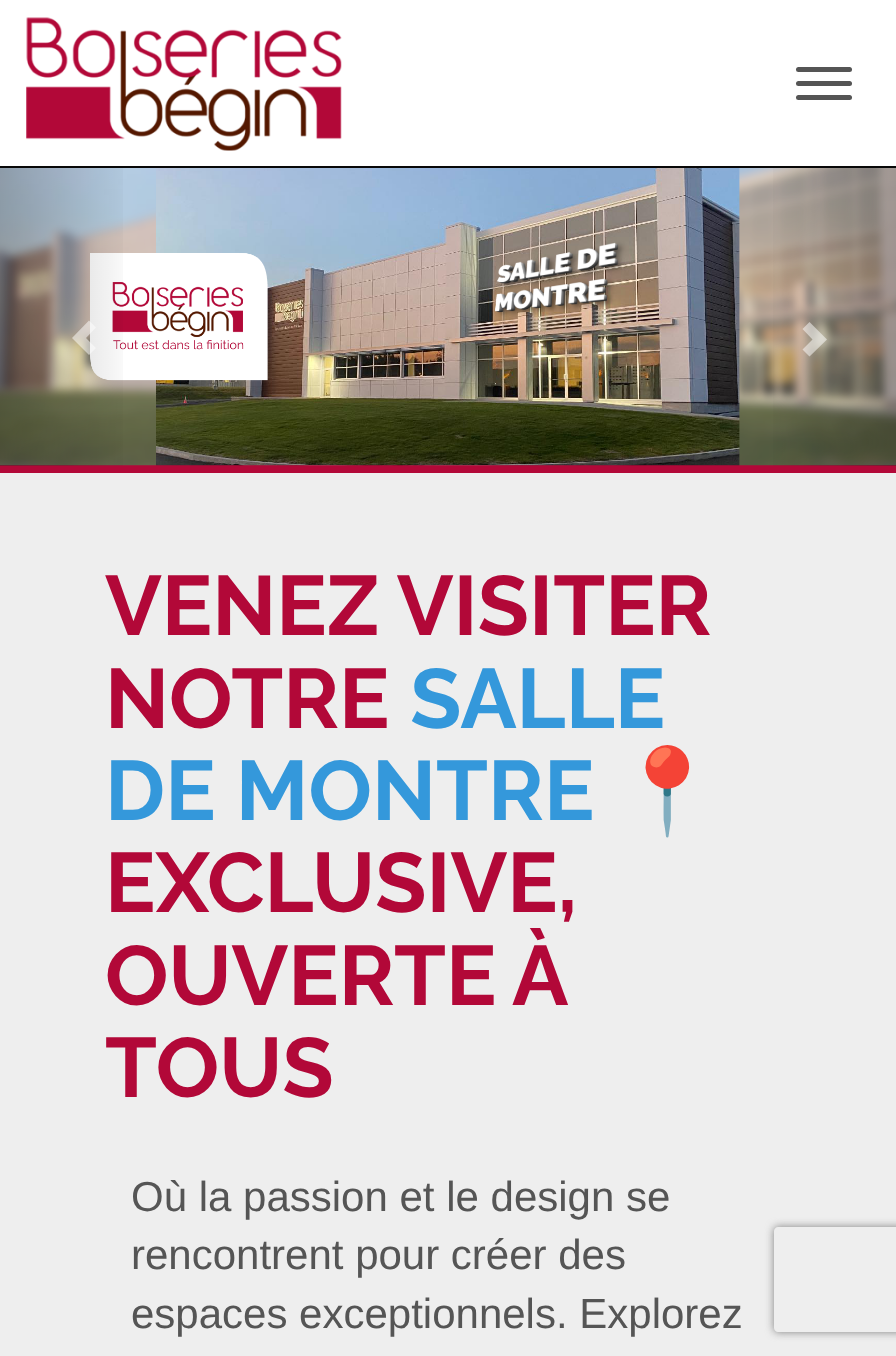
(async () => {
  const canvas = document.querySelector("canvas");
  canvas.width = 896;
  canvas.height = 1356;
  const ctx = canvas.getContext("2d");
  ctx.miterLimit = 4;
  ctx.fontKerning = "normal";
  async function loadImage(src) {
    const img = new Image();
    img.src = src;
    await img.decode();
    return img;
  }
  let gradient, path;

  ctx.fillStyle = "#b20838";
  ctx.fillRect(0, 0, 896, 1356);
  ctx.fillStyle = "#ffffff";
  ctx.fillRect(0, 0, 896, 166);
  ctx.fillStyle = "#080808";
  ctx.fillRect(0, 166, 896, 2);
  ctx.drawImage(await loadImage("img/1.png"), 26, 17, 316, 134);
  ctx.fillStyle = "#555555";
  ctx.beginPath();
  ctx.roundRect(796, 67, 56, 5, 2.5);
  ctx.fill();
  ctx.beginPath();
  ctx.roundRect(796, 81, 56, 5, 2.5);
  ctx.fill();
  ctx.beginPath();
  ctx.roundRect(796, 95, 56, 5, 2.5);
  ctx.fill();
  ctx.drawImage(await loadImage("img/2.png"), 0, 168, 896, 298);
  gradient = ctx.createLinearGradient(0, 317, 135, 317);
  gradient.addColorStop(0, "rgba(0, 0, 0, 0.25)");
  gradient.addColorStop(1, "rgba(0, 0, 0, 0)");
  ctx.fillStyle = gradient;
  ctx.fillRect(0, 168, 123, 298);
  ctx.fillStyle = "rgba(255, 255, 255, 0.5)";
  path = new Path2D("M89 355L96 348L86 338L96 327.5L89 320.5L72 338Z");
  ctx.fill(path);
  gradient = ctx.createLinearGradient(761, 317, 896, 317);
  gradient.addColorStop(0, "rgba(0, 0, 0, 0)");
  gradient.addColorStop(1, "rgba(0, 0, 0, 0.25)");
  ctx.fillStyle = gradient;
  ctx.fillRect(773, 168, 123, 298);
  ctx.fillStyle = "rgba(255, 255, 255, 0.5)";
  path = new Path2D("M809.5 356.5L802.5 349.5L812.5 339.5L802.5 329L809.5 322L827 339.5Z");
  ctx.fill(path);
  ctx.fillStyle = "#eeeeee";
  ctx.fillRect(0, 473, 896, 883);
  ctx.save();
  path = new Path2D("M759 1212H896V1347H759ZM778 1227H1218C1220 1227 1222 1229 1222 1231V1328C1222 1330 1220 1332 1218 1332H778C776 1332 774 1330 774 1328V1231C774 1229 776 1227 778 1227Z");
  ctx.clip(path, "evenodd");
  ctx.fillStyle = "#808080";
  ctx.filter = "blur(4.5px)";
  ctx.beginPath();
  ctx.roundRect(774, 1227, 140, 105, 4);
  ctx.fill();
  ctx.filter = "none";
  ctx.restore();
  ctx.font = "bold 84px Raleway";
  ctx.fillStyle = "#b20838";
  ctx.fillText("VENEZ VISITER", 105, 635);
  ctx.fillText("NOTRE", 105, 728);
  ctx.fillStyle = "#3498db";
  ctx.fillText("SALLE", 410, 728);
  ctx.fillText("DE MONTRE", 105, 820);
  ctx.font = "bold 84px Noto Color Emoji";
  ctx.fillText("📍", 615, 820);
  ctx.font = "bold 84px Raleway";
  ctx.fillStyle = "#b20838";
  ctx.fillText("EXCLUSIVE,", 105, 912);
  ctx.wordSpacing = "-2px";
  ctx.fillText("OUVERTE À", 105, 1005);
  ctx.wordSpacing = "0px";
  ctx.fillText("TOUS", 105, 1097);
  ctx.font = "42px Liberation Sans";
  ctx.fillStyle = "#555555";
  for (const [text, x, y] of [
    ["Où la passion et le design se", 131, 1211],
    ["rencontrent pour créer des", 131, 1269],
    ["espaces exceptionnels. Explorez", 131, 1328],
  ]) {
    ctx.fillText(text, x, y);
  }
})();
